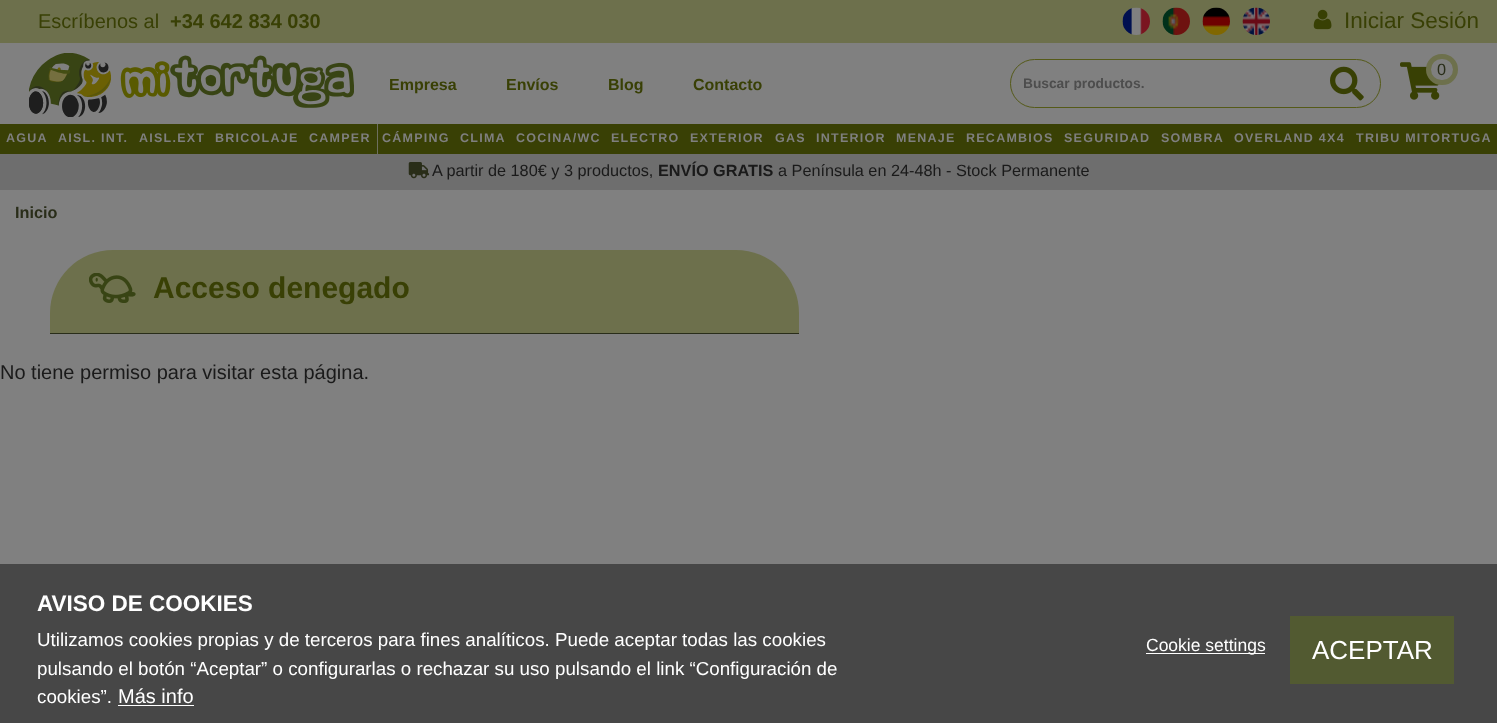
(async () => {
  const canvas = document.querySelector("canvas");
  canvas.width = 1497;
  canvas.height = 723;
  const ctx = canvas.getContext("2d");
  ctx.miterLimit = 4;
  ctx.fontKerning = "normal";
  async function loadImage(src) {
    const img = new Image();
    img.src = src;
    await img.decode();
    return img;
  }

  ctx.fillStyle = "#808080";
  ctx.fillRect(0, 0, 1497, 723);
  ctx.fillStyle = "#6d704c";
  ctx.fillRect(0, 0, 1497, 43);
  ctx.drawImage(await loadImage("img/1.png"), 1122, 7, 28, 28);
  ctx.drawImage(await loadImage("img/2.png"), 1162, 7, 28, 28);
  ctx.drawImage(await loadImage("img/3.png"), 1202, 7, 28, 28);
  ctx.drawImage(await loadImage("img/4.png"), 1242, 7, 28, 28);
  ctx.drawImage(await loadImage("img/5.png"), 1313, 9, 19, 21);
  ctx.drawImage(await loadImage("img/6.png"), 1400, 62, 40, 38);
  ctx.fillStyle = "#7f7f7f";
  ctx.beginPath();
  ctx.roundRect(1428.5, 56.5, 27, 26, 13);
  ctx.fill();
  ctx.strokeStyle = "#6d704c";
  ctx.lineWidth = 5;
  ctx.stroke();
  ctx.drawImage(await loadImage("img/7.png"), 29, 53, 82, 64);
  ctx.drawImage(await loadImage("img/8.png"), 120, 55, 234, 53);
  ctx.beginPath();
  ctx.roundRect(1010.5, 59.5, 370, 48, 24);
  ctx.strokeStyle = "#555a18";
  ctx.lineWidth = 1;
  ctx.stroke();
  ctx.drawImage(await loadImage("img/9.png"), 1330, 66, 34, 35);
  for (const [x, y, w, h, color] of [
    [0, 124, 1, 30, "#394005"],
    [1, 124, 53, 30, "#394005"],
    [54, 124, 80, 30, "#394005"],
    [134, 124, 77, 30, "#394005"],
    [211, 124, 94, 30, "#394005"],
    [377, 124, 1, 30, "#6d6f5f"],
    [305, 124, 72, 30, "#394005"],
    [378, 124, 77, 30, "#394005"],
    [455, 124, 56, 30, "#394005"],
    [511, 124, 95, 30, "#394005"],
    [606, 124, 80, 30, "#394005"],
    [686, 124, 84, 30, "#394005"],
    [770, 124, 41, 30, "#394005"],
    [811, 124, 80, 30, "#394005"],
    [891, 124, 168, 30, "#394005"],
    [1059, 124, 1, 30, "#394005"],
    [1060, 124, 96, 30, "#394005"],
    [1156, 124, 74, 30, "#394005"],
    [1230, 124, 121, 30, "#394005"],
    [1351, 124, 146, 30, "#394005"],
    [0, 154, 1497, 36, "#6e6e6e"],
  ]) {
    ctx.fillStyle = color;
    ctx.fillRect(x, y, w, h);
  }
  ctx.drawImage(await loadImage("img/10.png"), 408, 162, 22, 17);
  ctx.fillStyle = "#6d704c";
  ctx.beginPath();
  ctx.roundRect(50, 250, 749, 84, [63, 63, 0, 0]);
  ctx.fill();
  ctx.fillStyle = "#292d19";
  ctx.fillRect(50, 333, 749, 1);
  ctx.drawImage(await loadImage("img/11.png"), 89, 273, 47, 30);
  for (const [x, y, w, h, color] of [
    [0, 564, 1497, 159, "#474747"],
    [118, 705, 76, 1, "#ffffff"],
    [1146, 653, 119, 1, "#ffffff"],
    [1290, 616, 164, 68, "#525a31"],
  ]) {
    ctx.fillStyle = color;
    ctx.fillRect(x, y, w, h);
  }
  ctx.font = "20px Liberation Sans";
  ctx.fillStyle = "#394005";
  ctx.fillText("Escríbenos al", 38, 28);
  ctx.font = "bold 20px Liberation Sans";
  ctx.fillText("+34 642 834 030", 170, 28);
  ctx.font = "22.5px Liberation Sans";
  ctx.fillText("Iniciar Sesión", 1344, 28);
  ctx.font = "16.25px Liberation Sans";
  ctx.fillStyle = "#292d19";
  ctx.fillText("0", 1437, 75);
  ctx.font = "bold 16px Liberation Sans";
  ctx.fillStyle = "#394005";
  for (const [text, x, y] of [
    ["Empresa", 389, 90],
    ["Envíos", 506, 90],
    ["Blog", 608, 90],
    ["Contacto", 693, 90],
  ]) {
    ctx.fillText(text, x, y);
  }
  ctx.save();
  ctx.beginPath();
  ctx.rect(1024, 75, 300, 15);
  ctx.clip();
  ctx.font = "bold 13.75px Liberation Sans";
  ctx.fillStyle = "#4d4d4d";
  ctx.fillText("Buscar productos.", 1023, 88);
  ctx.restore();
  ctx.letterSpacing = "1.25px";
  ctx.font = "bold 12.5px Liberation Sans";
  ctx.fillStyle = "#7f7f7f";
  for (const [text, x, y] of [
    ["AGUA", 6, 142],
    ["AISL. INT.", 58, 142],
    ["AISL.EXT", 139, 142],
    ["BRICOLAJE", 215, 142],
    ["CAMPER", 309, 142],
    ["CÁMPING", 382, 142],
    ["CLIMA", 460, 142],
    ["COCINA/WC", 516, 142],
    ["ELECTRO", 611, 142],
    ["EXTERIOR", 690, 142],
    ["GAS", 775, 142],
    ["INTERIOR", 816, 142],
    ["MENAJE", 896, 142],
    ["RECAMBIOS", 966, 142],
    ["SEGURIDAD", 1064, 142],
    ["SOMBRA", 1161, 142],
    ["OVERLAND 4X4", 1234, 142],
    ["TRIBU MITORTUGA", 1356, 142],
  ]) {
    ctx.fillText(text, x, y);
  }
  ctx.letterSpacing = "0px";
  ctx.font = "16.25px Liberation Sans";
  ctx.fillStyle = "#1a1a1a";
  ctx.fillText("A partir de 180€ y 3 productos,", 432, 176);
  ctx.font = "bold 16.25px Liberation Sans";
  ctx.fillText("ENVÍO GRATIS", 658, 176);
  ctx.font = "16.25px Liberation Sans";
  ctx.fillText("a Península en 24-48h - Stock Permanente", 778, 176);
  ctx.font = "bold 16.25px Liberation Sans";
  ctx.fillStyle = "#292d19";
  ctx.fillText("Inicio", 15, 218);
  ctx.font = "bold 30px Liberation Sans";
  ctx.fillStyle = "#394005";
  ctx.fillText("Acceso denegado", 153, 298);
  ctx.font = "20px Liberation Sans";
  ctx.fillStyle = "#1a1a1a";
  ctx.fillText("No tiene permiso para visitar esta página.", 0, 379);
  ctx.font = "bold 22.5px Liberation Sans";
  ctx.fillStyle = "#ffffff";
  ctx.fillText("AVISO DE COOKIES", 37, 611);
  ctx.font = "18.75px Liberation Sans";
  for (const [text, x, y] of [
    ["Utilizamos cookies propias y de terceros para fines analíticos. Puede aceptar todas las cookies", 37, 646],
    ["pulsando el botón “Aceptar” o configurarlas o rechazar su uso pulsando el link “Configuración de", 37, 675],
    ["cookies”.", 37, 703],
  ]) {
    ctx.fillText(text, x, y);
  }
  ctx.font = "20px Liberation Sans";
  ctx.fillText("Más info", 118, 703);
  ctx.font = "17.5px Liberation Sans";
  ctx.fillText("Cookie settings", 1146, 651);
  ctx.font = "26px Liberation Sans";
  ctx.fillText("ACEPTAR", 1312, 659);
})();
